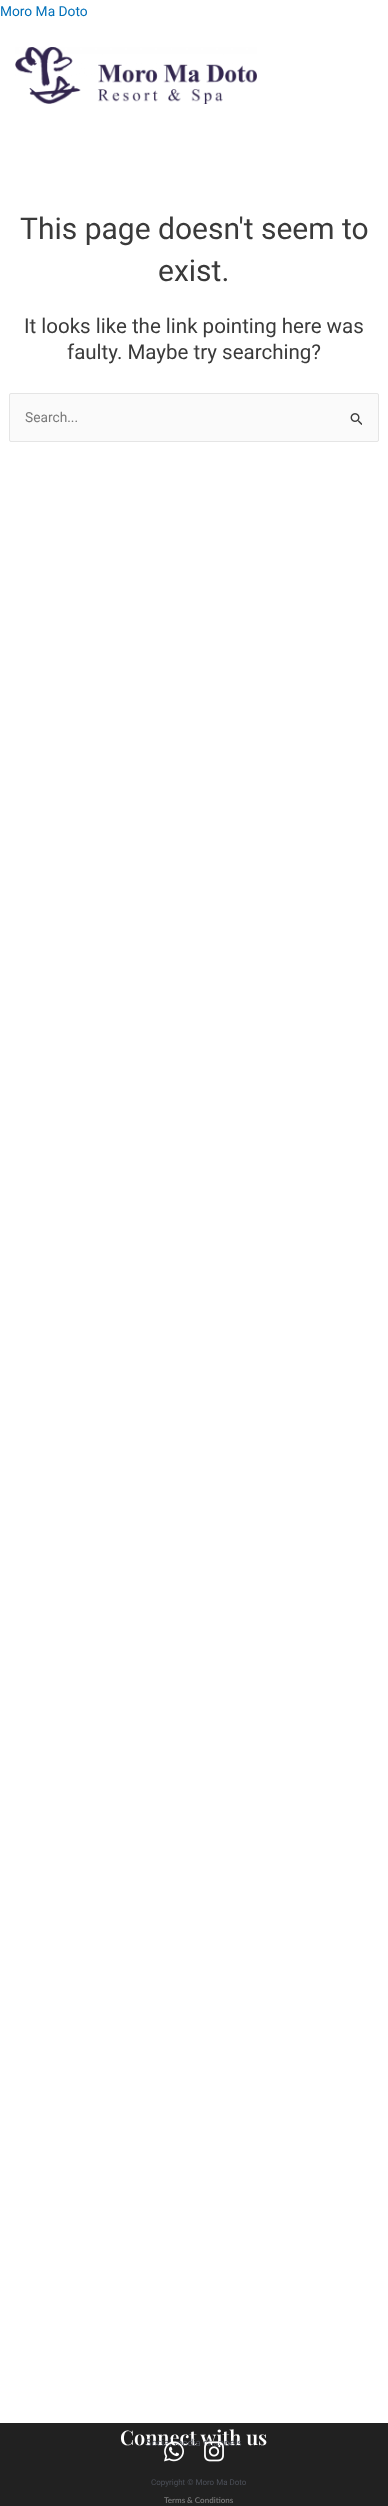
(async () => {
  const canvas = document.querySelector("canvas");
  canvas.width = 388;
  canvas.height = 2506;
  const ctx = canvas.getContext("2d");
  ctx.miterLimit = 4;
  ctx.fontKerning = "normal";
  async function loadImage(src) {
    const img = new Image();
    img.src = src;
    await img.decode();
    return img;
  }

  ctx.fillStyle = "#ffffff";
  ctx.fillRect(0, 0, 388, 2506);
  ctx.drawImage(await loadImage("img/1.png"), 15, 47, 242, 57);
  ctx.fillStyle = "#fafafa";
  ctx.beginPath();
  ctx.roundRect(9.5, 393.5, 369, 48, 1.5);
  ctx.fill();
  ctx.strokeStyle = "#e5e5e5";
  ctx.stroke();
  ctx.drawImage(await loadImage("img/2.png"), 350, 413, 12, 12);
  ctx.fillStyle = "#212121";
  ctx.fillRect(0, 2423, 388, 83);
  ctx.font = "13.75px Roboto";
  ctx.fillStyle = "#0170b9";
  ctx.fillText("Moro Ma Doto", 0, 16);
  ctx.font = "30px Roboto";
  ctx.fillStyle = "#3a3a3a";
  ctx.fillText("This page doesn't seem to", 20, 239);
  ctx.fillText("exist.", 158, 281);
  ctx.font = "20.5px Roboto";
  ctx.fillText("It looks like the link pointing here was", 24, 333);
  ctx.fillText("faulty. Maybe try searching?", 67, 359);
  ctx.font = "13.75px Roboto";
  ctx.fillStyle = "#7a7a7a";
  ctx.fillText("Search...", 25, 422);
  ctx.font = "600 20px Playfair Display";
  ctx.fillStyle = "#ffffff";
  ctx.fillText("Connect with us", 120, 2445);
  ctx.font = "10px Lato";
  ctx.fillStyle = "#4b4f58";
  ctx.fillText("Social media channels", 146, 2446);
  ctx.drawImage(await loadImage("img/3.png"), 164, 2441, 20, 21);
  ctx.drawImage(await loadImage("img/4.png"), 204, 2441, 20, 21);
  ctx.font = "8px Roboto";
  ctx.fillText("Copyright © Moro Ma Doto", 151, 2485);
  ctx.font = "600 8px Lato";
  ctx.fillStyle = "#7a7a7a";
  ctx.fillText("Terms & Conditions", 164, 2503);
})();
